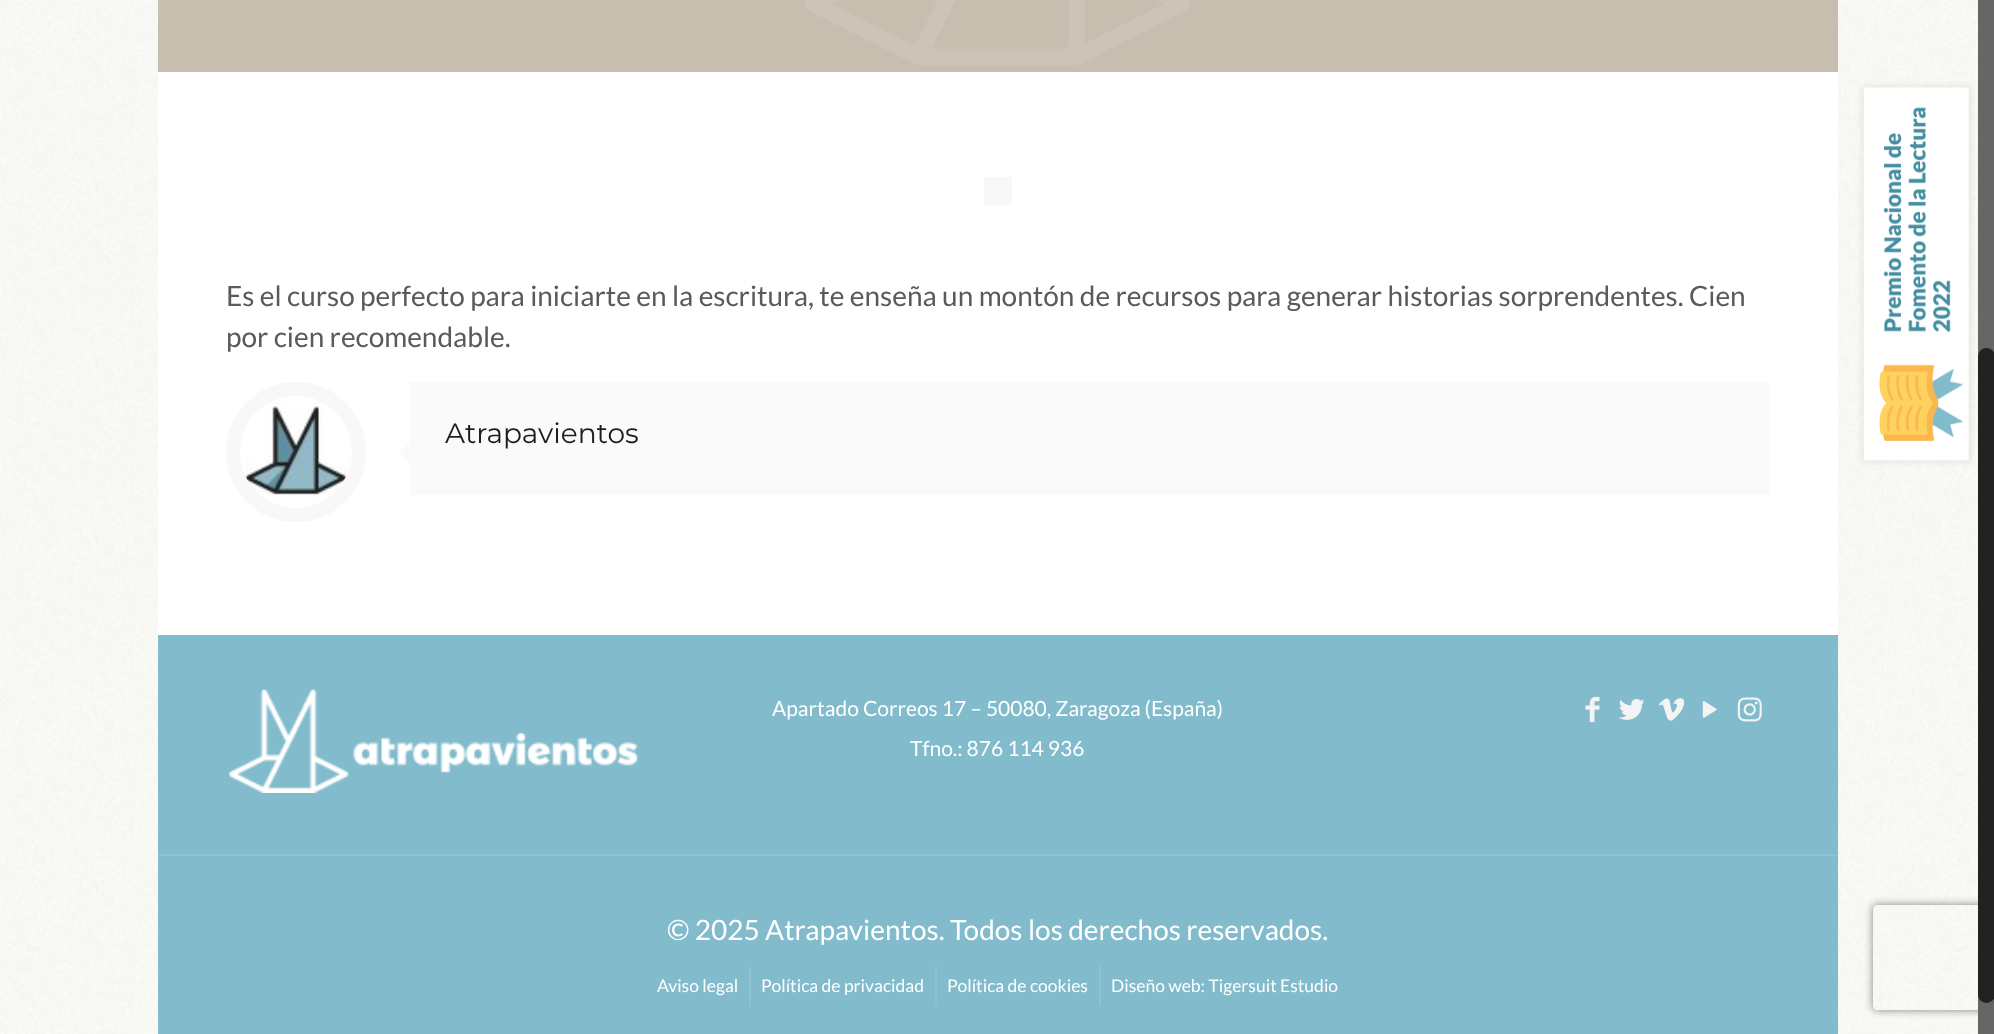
(async () => {
  const canvas = document.querySelector("canvas");
  canvas.width = 1994;
  canvas.height = 1034;
  const ctx = canvas.getContext("2d");
  ctx.miterLimit = 4;
  ctx.fontKerning = "normal";
  async function loadImage(src) {
    const img = new Image();
    img.src = src;
    await img.decode();
    return img;
  }
  let path;

  ctx.fillStyle = "#fbfbf8";
  ctx.fillRect(0, 0, 1994, 1034);
  ctx.drawImage(await loadImage("img/1.png"), 0, 0, 1978, 1034);
  ctx.fillStyle = "#ffffff";
  ctx.fillRect(158, 72, 1680, 563);
  ctx.fillStyle = "#c8beaf";
  ctx.fillRect(158, 0, 1680, 72);
  ctx.drawImage(await loadImage("img/2.png"), 805, 0, 385, 65);
  ctx.fillStyle = "#f8f8f8";
  ctx.fillRect(984, 177, 28, 28);
  ctx.beginPath();
  ctx.arc(296, 452, 63, 0, Math.PI * 2);
  ctx.strokeStyle = "#f8f8f8";
  ctx.lineWidth = 14;
  ctx.stroke();
  ctx.drawImage(await loadImage("img/3.png"), 245, 401, 104, 97);
  ctx.fillStyle = "#fafafa";
  ctx.fillRect(410, 382, 1359, 113);
  path = new Path2D("M409.5 443V464L399 453Z");
  ctx.fill(path);
  ctx.fillStyle = "#81bbcc";
  ctx.fillRect(158, 635, 1680, 399);
  ctx.drawImage(await loadImage("img/4.png"), 228, 689, 410, 104);
  ctx.drawImage(await loadImage("img/5.png"), 1585, 696, 15, 27);
  ctx.drawImage(await loadImage("img/6.png"), 1619, 699, 26, 21);
  ctx.drawImage(await loadImage("img/7.png"), 1659, 698, 26, 23);
  ctx.drawImage(await loadImage("img/8.png"), 1702, 701, 15, 17);
  ctx.drawImage(await loadImage("img/9.png"), 1737, 697, 25, 25);
  for (const [x, y, w, h, color] of [
    [158, 854, 1680, 2, "#8ec2d1"],
    [749, 966, 2, 40, "#8ec2d1"],
    [935, 966, 2, 40, "#8ec2d1"],
    [1099, 966, 2, 40, "#8ec2d1"],
  ]) {
    ctx.fillStyle = color;
    ctx.fillRect(x, y, w, h);
  }
  ctx.save();
  path = new Path2D("M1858 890H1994V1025H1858ZM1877 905H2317C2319 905 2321 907 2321 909V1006C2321 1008 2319 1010 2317 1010H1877C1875 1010 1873 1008 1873 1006V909C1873 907 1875 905 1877 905Z");
  ctx.clip(path, "evenodd");
  ctx.fillStyle = "#808080";
  ctx.filter = "blur(4.5px)";
  ctx.beginPath();
  ctx.roundRect(1873, 905, 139, 105, 4);
  ctx.fill();
  ctx.filter = "none";
  ctx.restore();
  ctx.fillStyle = "#666666";
  ctx.fillRect(1978, 0, 16, 1034);
  ctx.fillStyle = "#222222";
  ctx.beginPath();
  ctx.roundRect(1978, 348, 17, 655, 8.5);
  ctx.fill();
  ctx.fillStyle = "rgba(0, 0, 0, 0.08)";
  ctx.filter = "blur(3.5px)";
  ctx.beginPath();
  ctx.rect(1862, 86, 109, 376);
  ctx.fill();
  ctx.filter = "none";
  ctx.drawImage(await loadImage("img/10.png"), 1863, 87, 106, 374);
  ctx.font = "28px Lato";
  ctx.fillStyle = "#5a5a5a";
  ctx.fillText("Es el curso perfecto para iniciarte en la escritura, te enseña un montón de recursos para generar historias sorprendentes. Cien", 226, 306);
  ctx.fillText("por cien recomendable.", 226, 347);
  ctx.font = "100 28px Montserrat";
  ctx.fillStyle = "#1d1d1b";
  ctx.fillText("Atrapavientos", 445, 443);
  ctx.font = "21px Lato";
  ctx.fillStyle = "#ffffff";
  ctx.fillText("Apartado Correos 17 – 50080, Zaragoza (España)", 772, 716);
  ctx.fillText("Tfno.: 876 114 936", 910, 756);
  ctx.font = "28px Lato";
  ctx.fillText("© 2025 Atrapavientos. Todos los derechos reservados.", 667, 940);
  ctx.font = "17.5px Lato";
  for (const [text, x, y] of [
    ["Aviso legal", 657, 992],
    ["Política de privacidad", 761, 992],
    ["Política de cookies", 947, 992],
    ["Diseño web: Tigersuit Estudio", 1111, 992],
  ]) {
    ctx.fillText(text, x, y);
  }
})();
